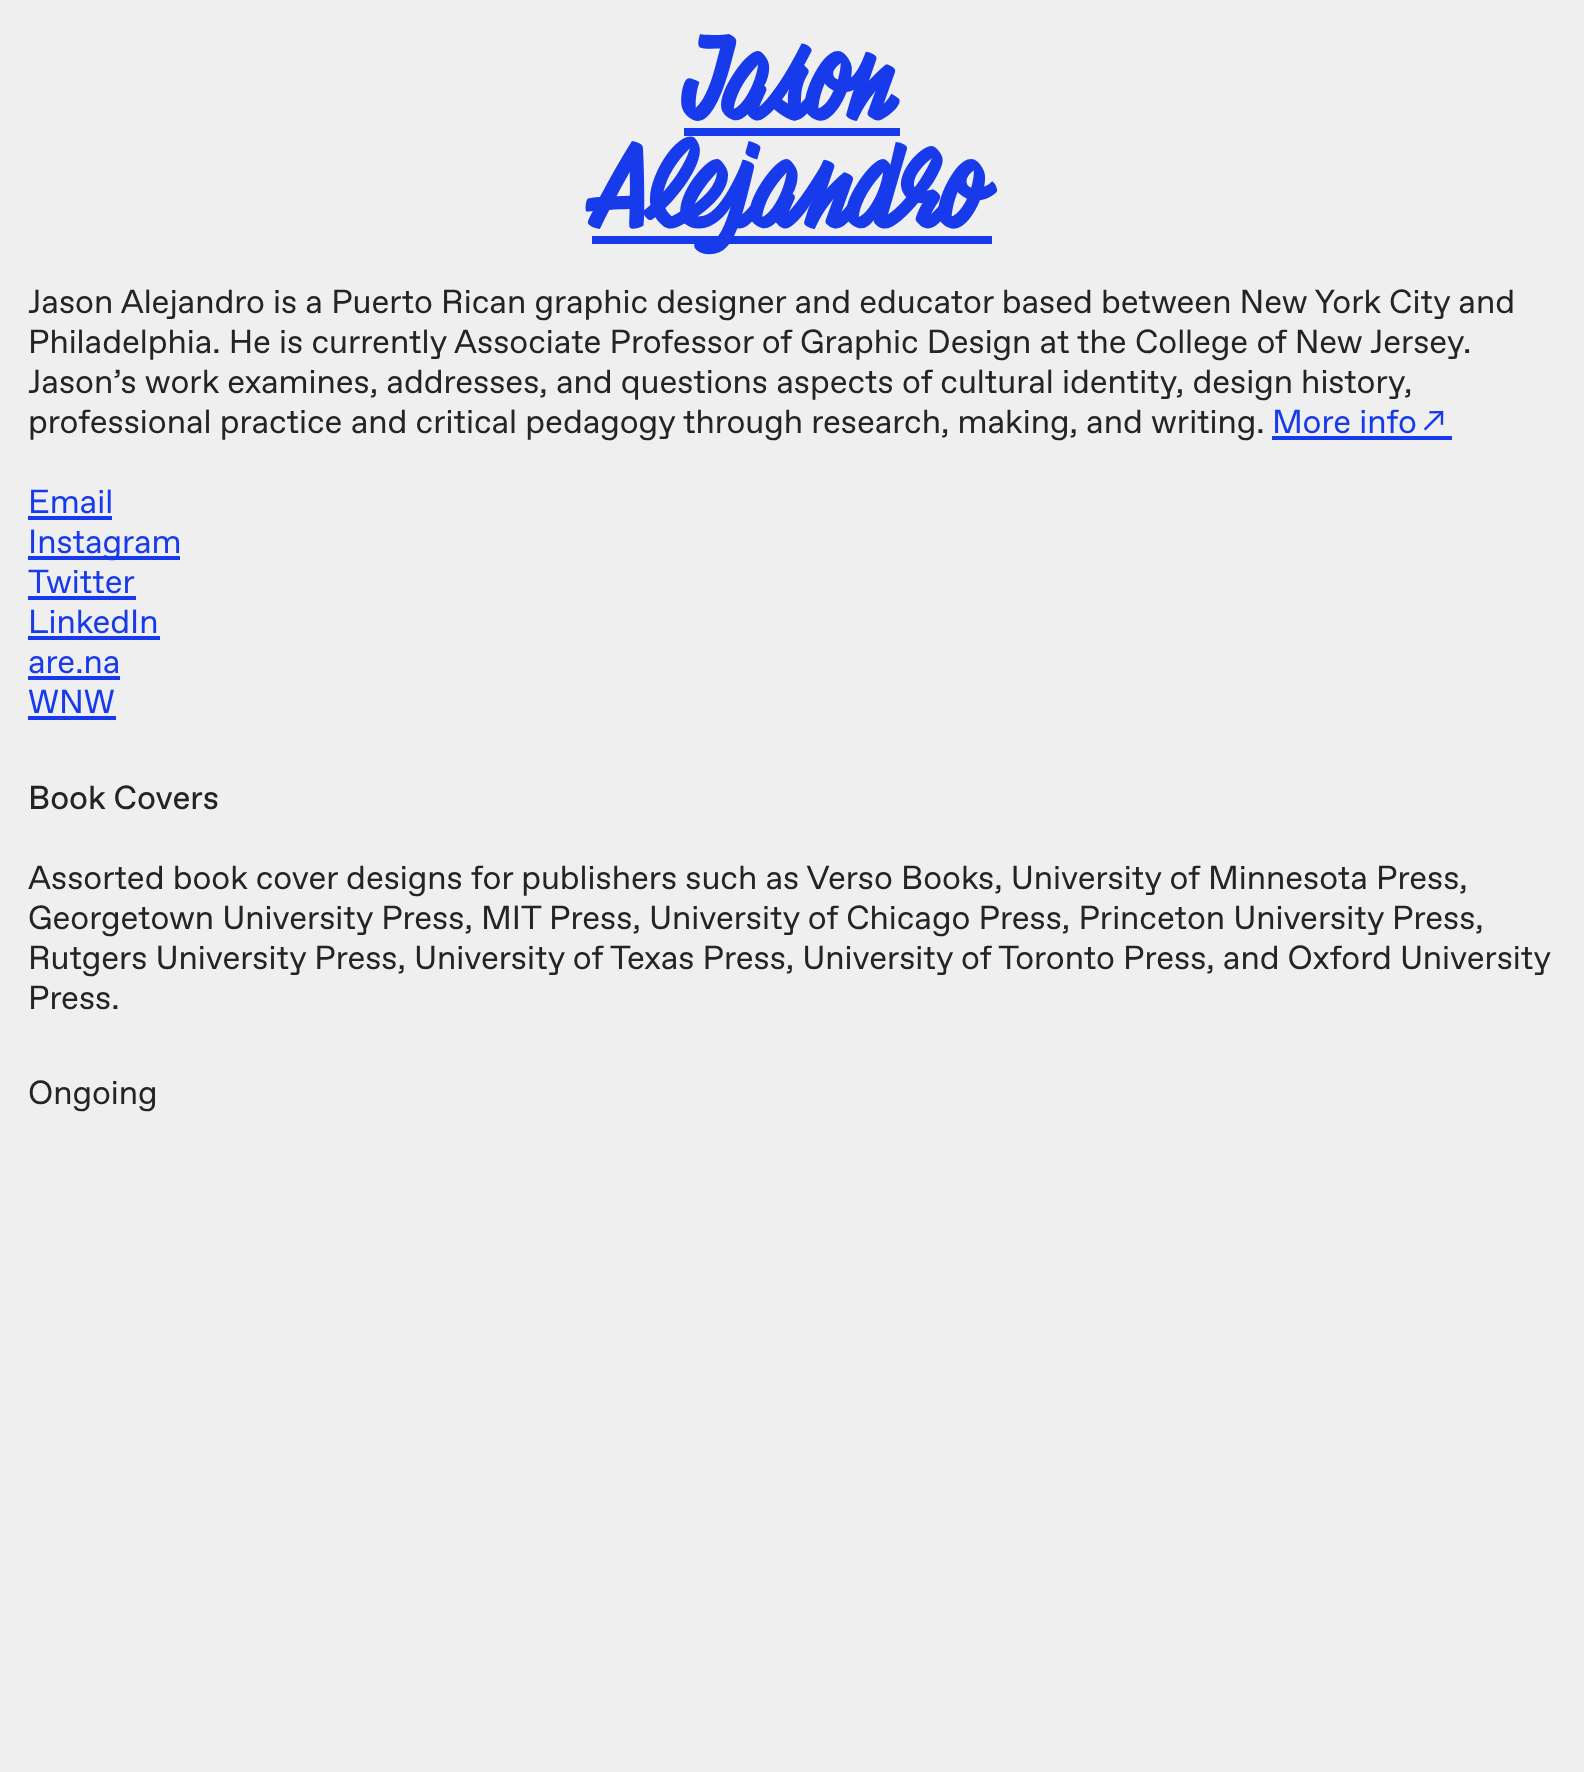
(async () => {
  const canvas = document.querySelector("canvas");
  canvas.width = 1584;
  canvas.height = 1772;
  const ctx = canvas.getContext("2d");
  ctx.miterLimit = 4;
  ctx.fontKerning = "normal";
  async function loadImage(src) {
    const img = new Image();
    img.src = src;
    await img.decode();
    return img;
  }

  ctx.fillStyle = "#efefef";
  ctx.fillRect(0, 0, 1584, 1772);
  for (const [x, y, w, h, color] of [
    [684, 128, 216, 8, "#173aea"],
    [592, 236, 400, 8, "#173aea"],
    [1272, 436, 180, 4, "#173aea"],
  ]) {
    ctx.fillStyle = color;
    ctx.fillRect(x, y, w, h);
  }
  ctx.drawImage(await loadImage("img/1.png"), 1423, 410, 21, 21);
  for (const [x, y, w, h, color] of [
    [28, 516, 84, 4, "#173aea"],
    [28, 556, 152, 4, "#173aea"],
    [28, 596, 108, 4, "#173aea"],
    [28, 636, 132, 4, "#173aea"],
    [28, 676, 92, 4, "#173aea"],
    [28, 716, 88, 4, "#173aea"],
  ]) {
    ctx.fillStyle = color;
    ctx.fillRect(x, y, w, h);
  }
  ctx.font = "bold 108.5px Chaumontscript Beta";
  ctx.fillText("Jason", 682, 120);
  ctx.fillText("Alejandro", 590, 228);
  ctx.font = "300 33.4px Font";
  ctx.fillStyle = "#242424";
  for (const [text, x, y] of [
    ["Jason Alejandro is a Puerto Rican graphic designer and educator based between New York City and", 28, 313],
    ["Philadelphia. He is currently Associate Professor of Graphic Design at the College of New Jersey.", 28, 353],
    ["Jason’s work examines, addresses, and questions aspects of cultural identity, design history,", 28, 393],
    ["professional practice and critical pedagogy through research, making, and writing.", 28, 433],
  ]) {
    ctx.fillText(text, x, y);
  }
  ctx.fillStyle = "#173aea";
  for (const [text, x, y] of [
    ["More info", 1272, 433],
    ["Email", 28, 513],
    ["Instagram", 28, 553],
    ["Twitter", 28, 593],
    ["LinkedIn", 28, 633],
    ["are.na", 28, 673],
    ["WNW", 28, 713],
  ]) {
    ctx.fillText(text, x, y);
  }
  ctx.font = "33.4px Font";
  ctx.fillStyle = "#242424";
  ctx.fillText("Book Covers", 28, 809);
  ctx.font = "300 33.4px Font";
  ctx.fillText("Assorted book cover designs for publishers such as Verso Books, University of Minnesota Press,", 28, 889);
  ctx.fillText("Georgetown University Press, MIT Press, University of Chicago Press, Princeton University Press,", 28, 929);
  ctx.wordSpacing = "-0.1px";
  ctx.fillText("Rutgers University Press, University of Texas Press, University of Toronto Press, and Oxford University", 28, 969);
  ctx.wordSpacing = "0px";
  ctx.fillText("Press.", 28, 1009);
  ctx.fillText("Ongoing", 28, 1104);
})();
